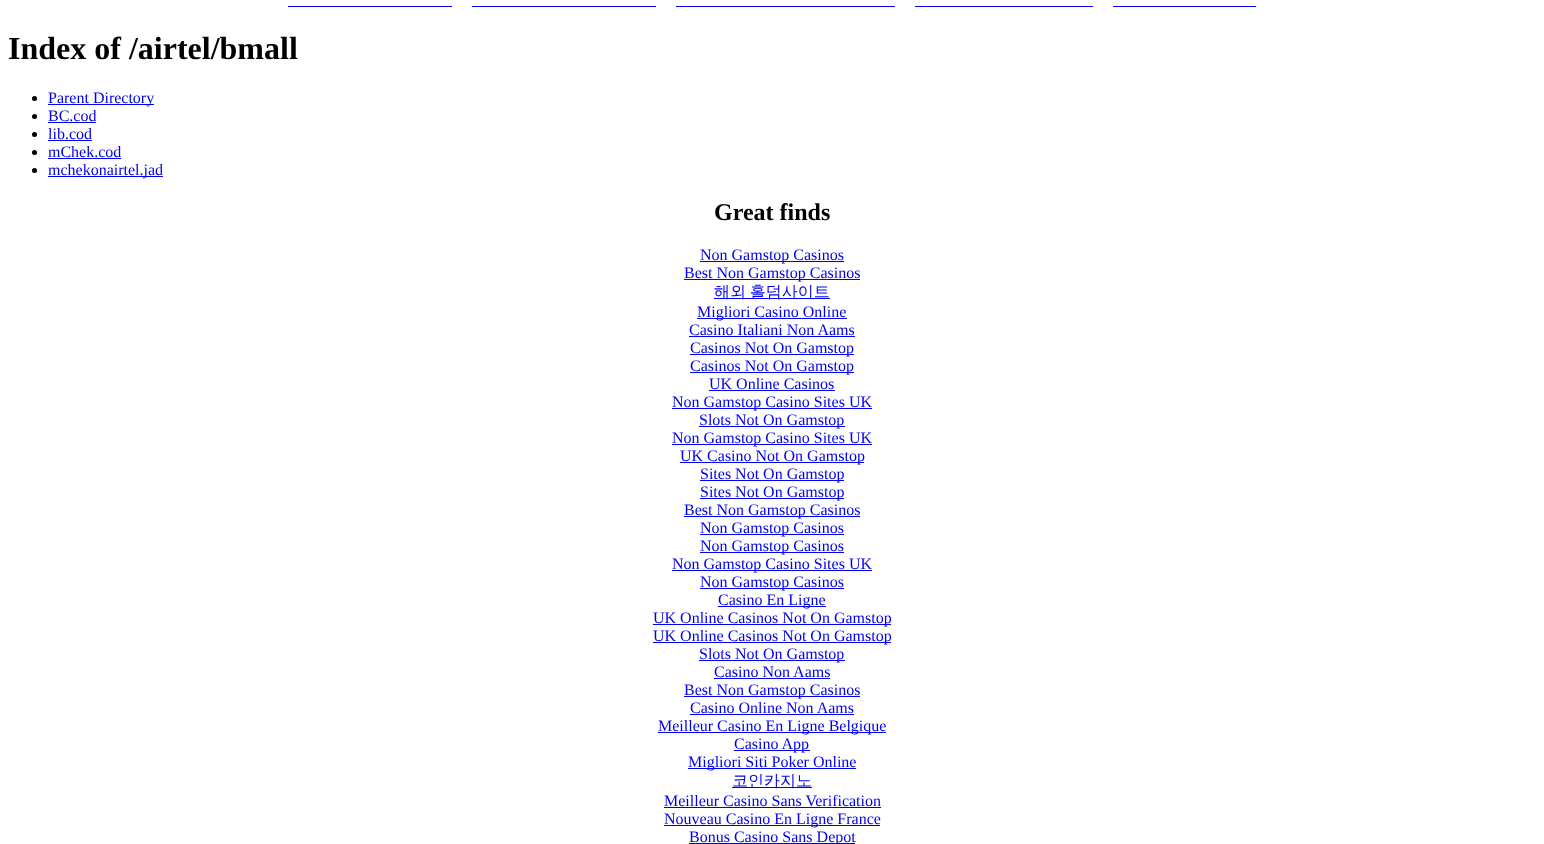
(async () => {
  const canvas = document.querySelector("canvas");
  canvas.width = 1544;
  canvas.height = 844;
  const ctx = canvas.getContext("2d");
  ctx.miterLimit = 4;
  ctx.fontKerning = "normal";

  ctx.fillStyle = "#ffffff";
  ctx.fillRect(0, 0, 1544, 844);
  for (const [x, y, w, h, color] of [
    [288, 6, 164, 1, "#0000ee"],
    [472, 6, 184, 1, "#0000ee"],
    [676, 6, 219, 1, "#0000ee"],
    [915, 6, 178, 1, "#0000ee"],
    [1113, 6, 143, 1, "#0000ee"],
  ]) {
    ctx.fillStyle = color;
    ctx.fillRect(x, y, w, h);
  }
  ctx.fillStyle = "#000000";
  ctx.beginPath();
  ctx.arc(34.5, 98.5, 2.5, 0, Math.PI * 2);
  ctx.fill();
  ctx.fillStyle = "#0000ee";
  ctx.fillRect(48, 104, 106, 1);
  ctx.fillStyle = "#000000";
  ctx.beginPath();
  ctx.arc(34.5, 116.5, 2.5, 0, Math.PI * 2);
  ctx.fill();
  ctx.fillStyle = "#0000ee";
  ctx.fillRect(48, 122, 48, 1);
  ctx.fillStyle = "#000000";
  ctx.beginPath();
  ctx.arc(34.5, 134.5, 2.5, 0, Math.PI * 2);
  ctx.fill();
  ctx.fillStyle = "#0000ee";
  ctx.fillRect(48, 140, 44, 1);
  ctx.fillStyle = "#000000";
  ctx.beginPath();
  ctx.arc(34.5, 152.5, 2.5, 0, Math.PI * 2);
  ctx.fill();
  ctx.fillStyle = "#0000ee";
  ctx.fillRect(48, 158, 73, 1);
  ctx.fillStyle = "#000000";
  ctx.beginPath();
  ctx.arc(34.5, 170.5, 2.5, 0, Math.PI * 2);
  ctx.fill();
  for (const [x, y, w, h, color] of [
    [48, 176, 115, 1, "#0000ee"],
    [700, 261, 144, 1, "#0000ee"],
    [684, 279, 176, 1, "#0000ee"],
    [714, 298, 116, 1, "#0000ee"],
    [697, 318, 150, 1, "#0000ee"],
    [689, 336, 166, 1, "#0000ee"],
    [690, 354, 164, 1, "#0000ee"],
    [690, 372, 164, 1, "#0000ee"],
    [709, 390, 126, 1, "#0000ee"],
    [672, 408, 200, 1, "#0000ee"],
    [699, 426, 146, 1, "#0000ee"],
    [672, 444, 200, 1, "#0000ee"],
    [680, 462, 184, 1, "#0000ee"],
    [700, 480, 144, 1, "#0000ee"],
    [700, 498, 144, 1, "#0000ee"],
    [684, 516, 176, 1, "#0000ee"],
    [700, 534, 144, 1, "#0000ee"],
    [700, 552, 144, 1, "#0000ee"],
    [672, 570, 200, 1, "#0000ee"],
    [700, 588, 144, 1, "#0000ee"],
    [718, 606, 108, 1, "#0000ee"],
    [653, 624, 238, 1, "#0000ee"],
    [653, 642, 238, 1, "#0000ee"],
    [699, 660, 146, 1, "#0000ee"],
    [714, 678, 116, 1, "#0000ee"],
    [684, 696, 176, 1, "#0000ee"],
    [690, 714, 164, 1, "#0000ee"],
    [658, 732, 228, 1, "#0000ee"],
    [734, 750, 76, 1, "#0000ee"],
    [688, 768, 168, 1, "#0000ee"],
    [732, 787, 80, 1, "#0000ee"],
    [664, 807, 217, 1, "#0000ee"],
    [664, 825, 216, 1, "#0000ee"],
    [689, 843, 166, 1, "#0000ee"],
  ]) {
    ctx.fillStyle = color;
    ctx.fillRect(x, y, w, h);
  }
  ctx.font = "bold 32px Liberation Serif";
  ctx.fillStyle = "#000000";
  ctx.fillText("Index of /airtel/bmall", 8, 59);
  ctx.font = "16px Liberation Serif";
  ctx.fillStyle = "#0000ee";
  for (const [text, x, y] of [
    ["Parent Directory", 48, 103],
    ["BC.cod", 48, 121],
    ["lib.cod", 48, 139],
    ["mChek.cod", 48, 157],
    ["mchekonairtel.jad", 48, 175],
  ]) {
    ctx.fillText(text, x, y);
  }
  ctx.font = "bold 24px Liberation Serif";
  ctx.fillStyle = "#000000";
  ctx.fillText("Great finds", 714, 220);
  ctx.font = "16px Liberation Serif";
  ctx.fillStyle = "#0000ee";
  ctx.fillText("Non Gamstop Casinos", 700, 260);
  ctx.fillText("Best Non Gamstop Casinos", 684, 278);
  ctx.wordSpacing = "-1px";
  ctx.font = "500 16px WenQuanYi Zen Hei";
  ctx.fillText("해외 홀덤사이트", 714, 297);
  ctx.wordSpacing = "0px";
  ctx.font = "16px Liberation Serif";
  for (const [text, x, y] of [
    ["Migliori Casino Online", 697, 317],
    ["Casino Italiani Non Aams", 689, 335],
    ["Casinos Not On Gamstop", 690, 353],
    ["Casinos Not On Gamstop", 690, 371],
    ["UK Online Casinos", 709, 389],
    ["Non Gamstop Casino Sites UK", 672, 407],
    ["Slots Not On Gamstop", 699, 425],
    ["Non Gamstop Casino Sites UK", 672, 443],
    ["UK Casino Not On Gamstop", 680, 461],
    ["Sites Not On Gamstop", 700, 479],
    ["Sites Not On Gamstop", 700, 497],
    ["Best Non Gamstop Casinos", 684, 515],
    ["Non Gamstop Casinos", 700, 533],
    ["Non Gamstop Casinos", 700, 551],
    ["Non Gamstop Casino Sites UK", 672, 569],
    ["Non Gamstop Casinos", 700, 587],
    ["Casino En Ligne", 718, 605],
    ["UK Online Casinos Not On Gamstop", 653, 623],
    ["UK Online Casinos Not On Gamstop", 653, 641],
    ["Slots Not On Gamstop", 699, 659],
    ["Casino Non Aams", 714, 677],
    ["Best Non Gamstop Casinos", 684, 695],
    ["Casino Online Non Aams", 690, 713],
    ["Meilleur Casino En Ligne Belgique", 658, 731],
    ["Casino App", 734, 749],
    ["Migliori Siti Poker Online", 688, 767],
  ]) {
    ctx.fillText(text, x, y);
  }
  ctx.font = "500 16px WenQuanYi Zen Hei";
  ctx.fillText("코인카지노", 732, 786);
  ctx.font = "16px Liberation Serif";
  for (const [text, x, y] of [
    ["Meilleur Casino Sans Verification", 664, 806],
    ["Nouveau Casino En Ligne France", 664, 824],
    ["Bonus Casino Sans Depot", 689, 842],
  ]) {
    ctx.fillText(text, x, y);
  }
})();
